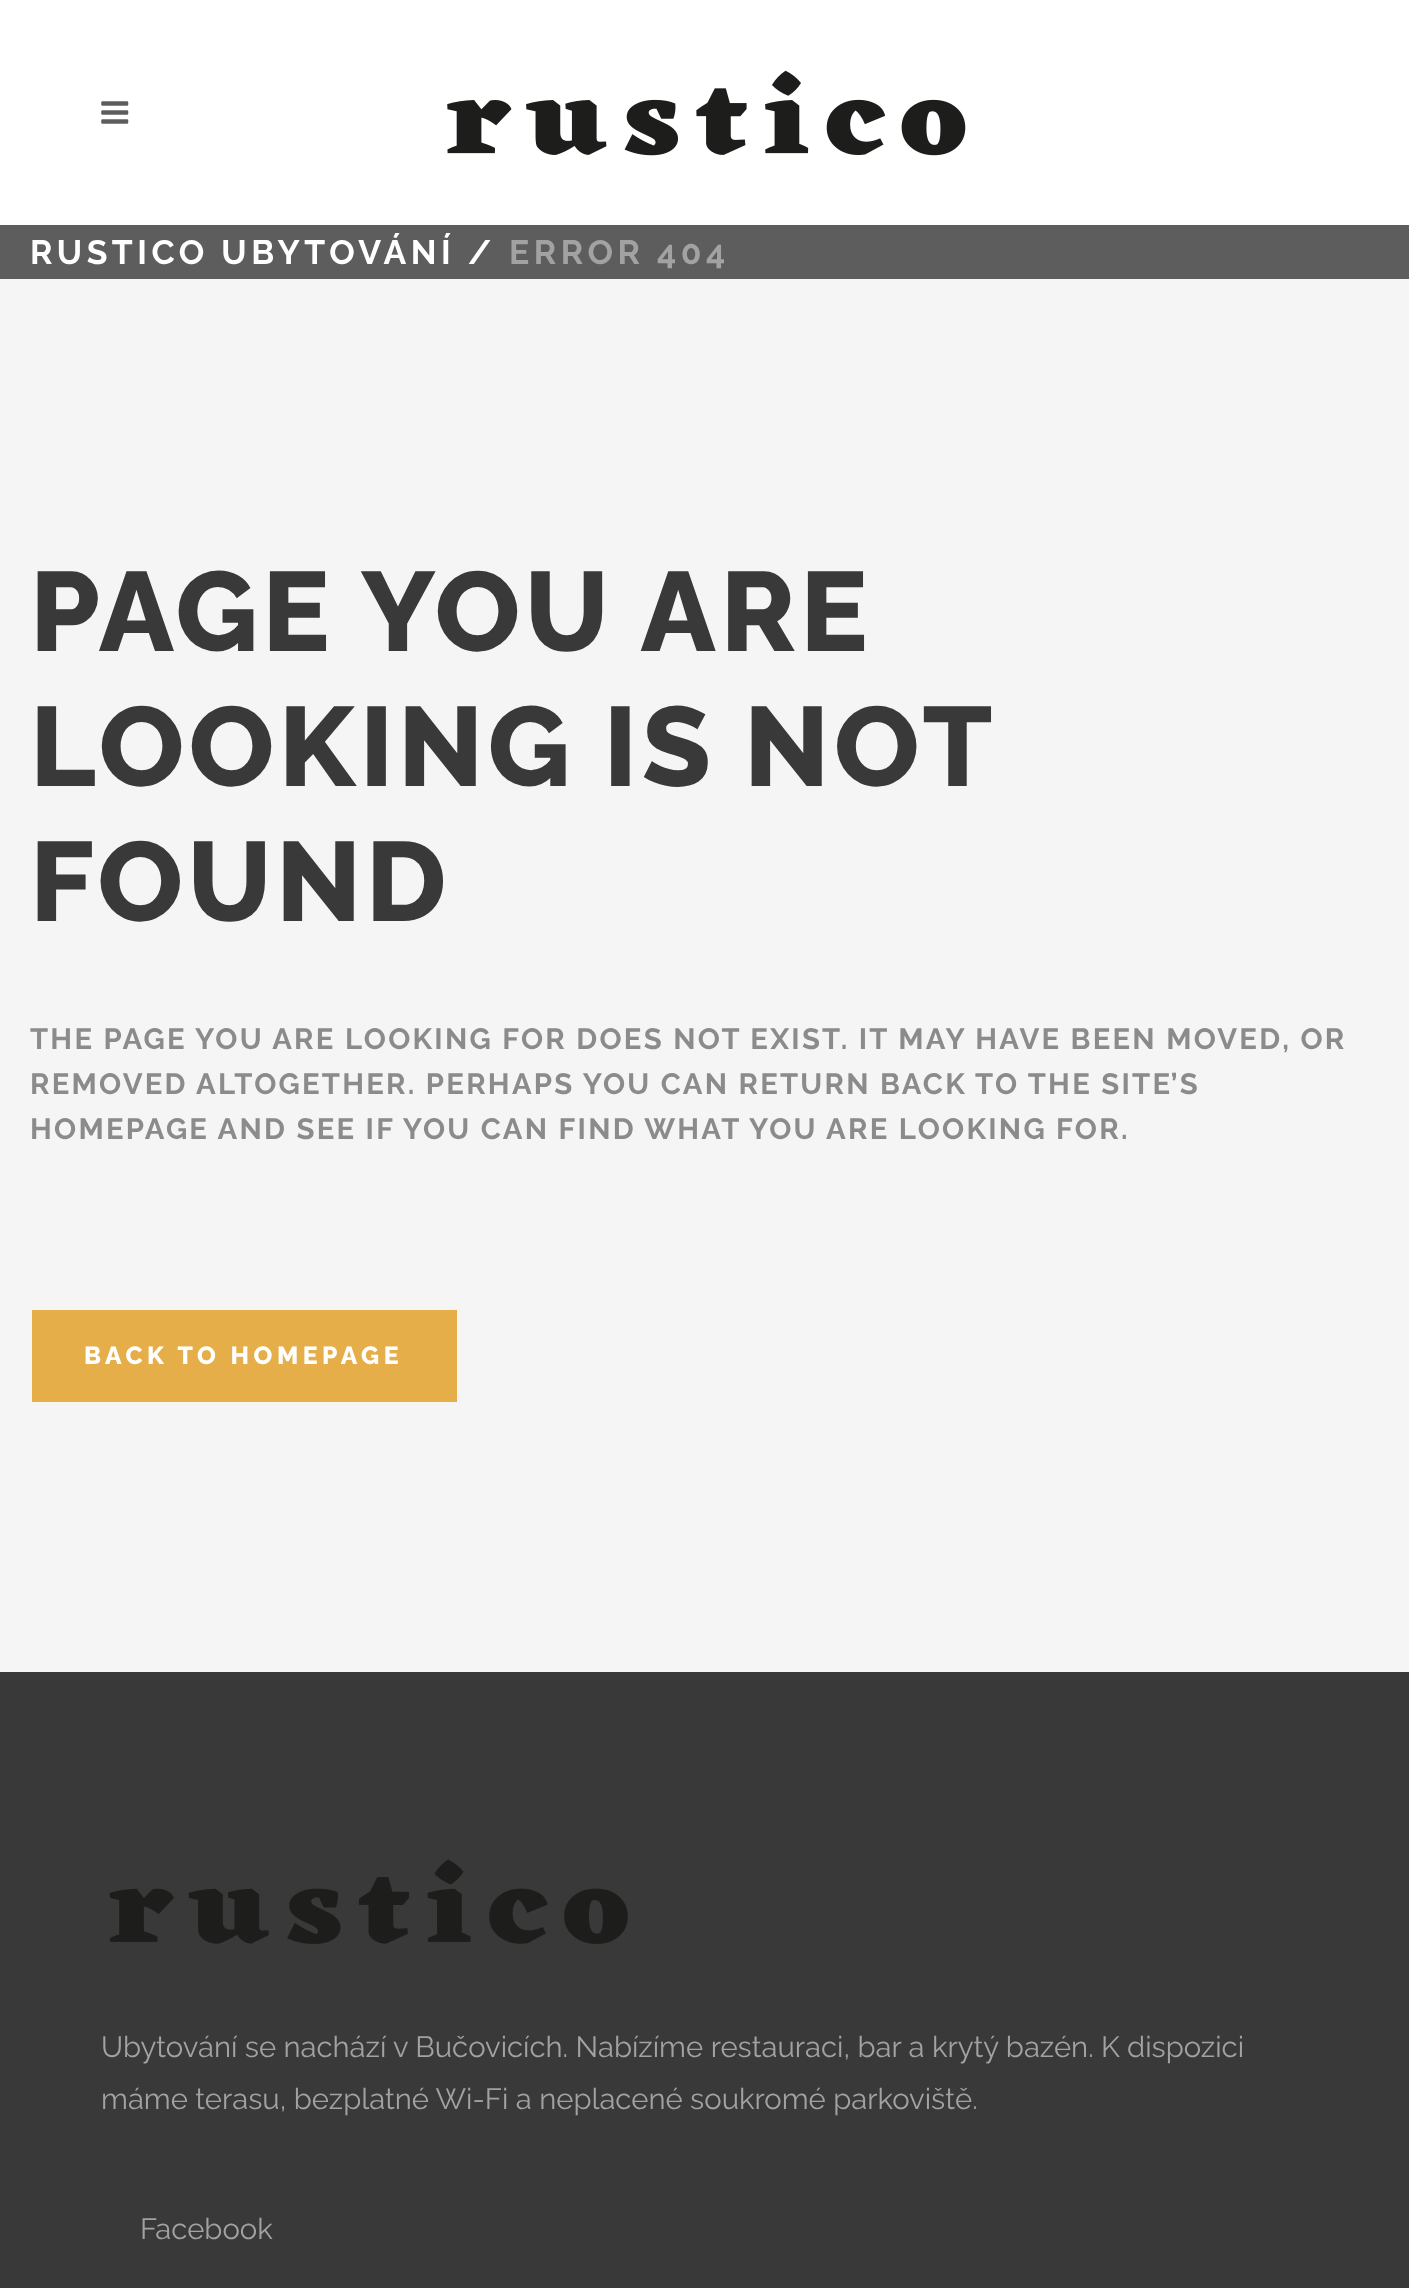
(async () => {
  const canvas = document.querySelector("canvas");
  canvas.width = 1409;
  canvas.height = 2288;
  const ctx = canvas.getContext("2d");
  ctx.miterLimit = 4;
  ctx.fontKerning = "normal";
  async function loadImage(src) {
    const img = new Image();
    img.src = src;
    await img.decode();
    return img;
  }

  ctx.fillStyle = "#f5f5f5";
  ctx.fillRect(0, 0, 1409, 2288);
  ctx.fillStyle = "#ffffff";
  ctx.fillRect(0, 0, 1409, 225);
  ctx.drawImage(await loadImage("img/1.png"), 101, 101, 28, 23);
  ctx.drawImage(await loadImage("img/2.png"), 447, 70, 519, 86);
  for (const [x, y, w, h, color] of [
    [0, 225, 1409, 54, "#5d5d5d"],
    [32, 1310, 425, 92, "#e6ae48"],
    [0, 1672, 1409, 616, "#393939"],
  ]) {
    ctx.fillStyle = color;
    ctx.fillRect(x, y, w, h);
  }
  ctx.drawImage(await loadImage("img/3.png"), 109, 1859, 519, 85);
  ctx.letterSpacing = "4.5px";
  ctx.font = "bold 33.75px Raleway";
  ctx.fillStyle = "#ffffff";
  ctx.fillText("RUSTICO UBYTOVÁNÍ /", 30, 264);
  ctx.fillStyle = "#a2a2a2";
  ctx.fillText("ERROR 404", 509, 264);
  ctx.font = "800 112.5px Raleway";
  ctx.fillStyle = "#393939";
  ctx.fillText("PAGE YOU ARE", 30, 651);
  ctx.wordSpacing = "-2px";
  ctx.fillText("LOOKING IS NOT", 30, 786);
  ctx.wordSpacing = "0px";
  ctx.fillText("FOUND", 30, 921);
  ctx.letterSpacing = "2.25px";
  ctx.font = "bold 29.25px Raleway";
  ctx.fillStyle = "#8b8b8b";
  for (const [text, x, y] of [
    ["THE PAGE YOU ARE LOOKING FOR DOES NOT EXIST. IT MAY HAVE BEEN MOVED, OR", 30, 1049],
    ["REMOVED ALTOGETHER. PERHAPS YOU CAN RETURN BACK TO THE SITE’S", 30, 1094],
    ["HOMEPAGE AND SEE IF YOU CAN FIND WHAT YOU ARE LOOKING FOR.", 30, 1139],
  ]) {
    ctx.fillText(text, x, y);
  }
  ctx.letterSpacing = "4.5px";
  ctx.font = "800 24.75px Raleway";
  ctx.fillStyle = "#ffffff";
  ctx.fillText("BACK TO HOMEPAGE", 84, 1364);
  ctx.letterSpacing = "0px";
  ctx.font = "29.25px Raleway";
  ctx.fillStyle = "#a2a2a2";
  for (const [text, x, y] of [
    ["Ubytování se nachází v Bučovicích. Nabízíme restauraci, bar a krytý bazén. K dispozici", 101, 2057],
    ["máme terasu, bezplatné Wi-Fi a neplacené soukromé parkoviště.", 101, 2109],
    ["Facebook", 140, 2239],
  ]) {
    ctx.fillText(text, x, y);
  }
})();
